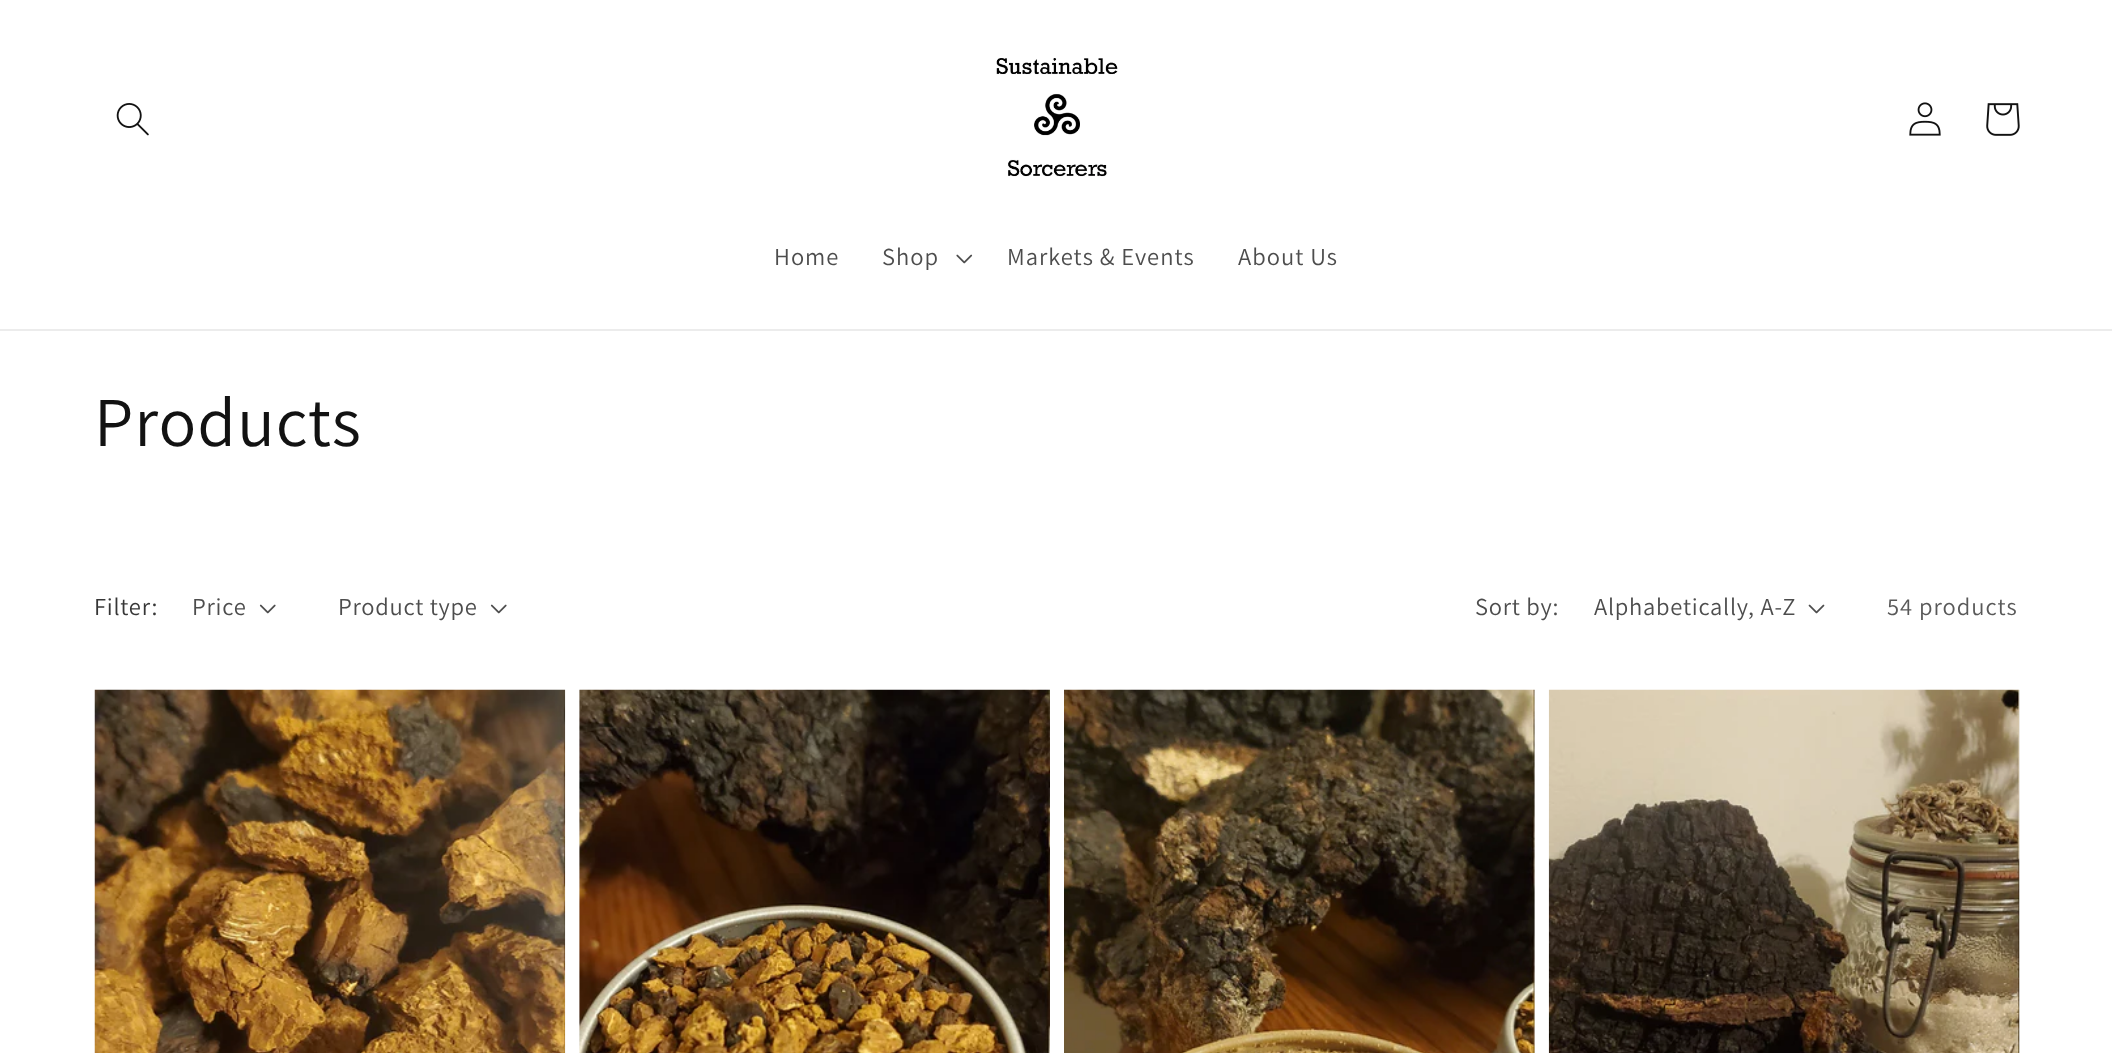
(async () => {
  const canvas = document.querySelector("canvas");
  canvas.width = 2112;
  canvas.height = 1053;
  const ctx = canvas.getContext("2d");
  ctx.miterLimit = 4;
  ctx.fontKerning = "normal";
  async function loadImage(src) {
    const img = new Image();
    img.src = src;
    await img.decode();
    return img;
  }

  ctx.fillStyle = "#ffffff";
  ctx.fillRect(0, 0, 2112, 1053);
  ctx.fillStyle = "#ececec";
  ctx.fillRect(0, 329, 2112, 2);
  ctx.drawImage(await loadImage("img/1.png"), 116, 103, 33, 33);
  ctx.drawImage(await loadImage("img/2.png"), 996, 58, 122, 119);
  ctx.drawImage(await loadImage("img/3.png"), 1909, 102, 32, 34);
  ctx.drawImage(await loadImage("img/4.png"), 1986, 103, 34, 33);
  ctx.drawImage(await loadImage("img/5.png"), 956, 254, 17, 10);
  ctx.drawImage(await loadImage("img/6.png"), 259, 604, 17, 10);
  ctx.drawImage(await loadImage("img/6.png"), 490, 604, 17, 10);
  ctx.drawImage(await loadImage("img/7.png"), 1808, 604, 17, 10);
  ctx.drawImage(await loadImage("img/8.png"), 94, 689, 472, 364);
  ctx.fillStyle = "#f3f3f3";
  ctx.fillRect(579, 690, 1, 363);
  ctx.drawImage(await loadImage("img/9.png"), 579, 689, 471, 364);
  ctx.fillRect(1534, 690, 1, 363);
  ctx.drawImage(await loadImage("img/10.png"), 1064, 689, 471, 364);
  ctx.fillRect(2019, 690, 1, 363);
  ctx.drawImage(await loadImage("img/11.png"), 1548, 689, 472, 364);
  ctx.letterSpacing = "1px";
  ctx.font = "24.5px Assistant";
  ctx.fillStyle = "#4d4d4d";
  for (const [text, x, y] of [
    ["Home", 774, 265],
    ["Shop", 882, 265],
    ["Markets & Events", 1007, 265],
    ["About Us", 1238, 265],
  ]) {
    ctx.fillText(text, x, y);
  }
  ctx.font = "70px Assistant";
  ctx.fillStyle = "#121212";
  ctx.fillText("Products", 94, 446);
  ctx.letterSpacing = "0.75px";
  ctx.font = "24.5px Assistant";
  ctx.fillStyle = "#363636";
  ctx.fillText("Filter:", 94, 615);
  ctx.fillStyle = "#4d4d4d";
  for (const [text, x, y] of [
    ["Price", 192, 615],
    ["Product type", 338, 615],
    ["Sort by:", 1475, 615],
    ["Alphabetically, A-Z", 1594, 615],
  ]) {
    ctx.fillText(text, x, y);
  }
  ctx.letterSpacing = "1px";
  ctx.fillStyle = "#595959";
  ctx.fillText("54 products", 1887, 615);
})();
